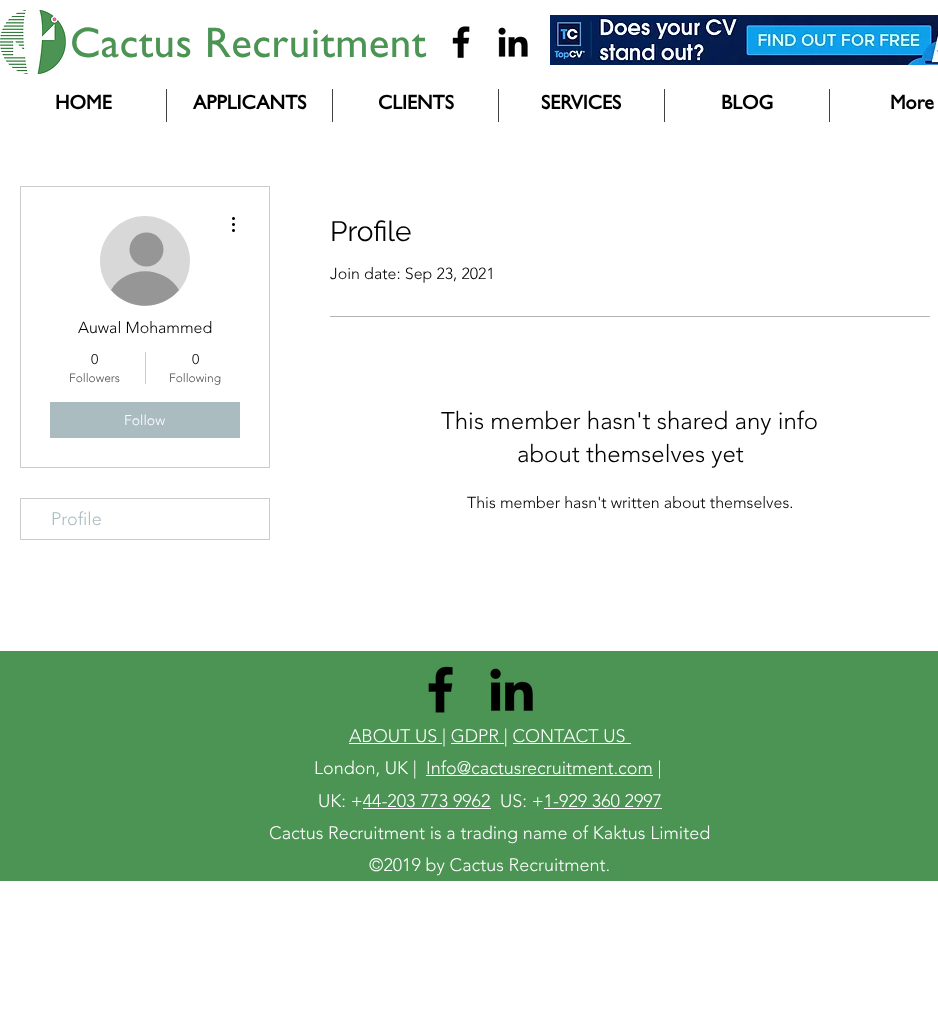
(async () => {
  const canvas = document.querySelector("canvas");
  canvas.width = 938;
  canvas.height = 1019;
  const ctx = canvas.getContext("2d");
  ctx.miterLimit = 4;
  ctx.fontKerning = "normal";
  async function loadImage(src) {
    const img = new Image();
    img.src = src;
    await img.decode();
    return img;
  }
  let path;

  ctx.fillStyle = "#ffffff";
  ctx.fillRect(0, 0, 938, 1019);
  ctx.drawImage(await loadImage("img/1.png"), 0, 10, 66, 64);
  ctx.drawImage(await loadImage("img/2.png"), 452, 26, 18, 32);
  ctx.drawImage(await loadImage("img/3.png"), 498, 27, 30, 30);
  ctx.drawImage(await loadImage("img/4.png"), 550, 15, 388, 50);
  for (const [x, y, w, h, color] of [
    [166, 89, 1, 33, "#414141"],
    [332, 89, 1, 33, "#414141"],
    [498, 89, 1, 33, "#414141"],
    [664, 89, 1, 33, "#414141"],
    [829, 89, 1, 33, "#414141"],
  ]) {
    ctx.fillStyle = color;
    ctx.fillRect(x, y, w, h);
  }
  ctx.strokeStyle = "#cccccc";
  ctx.strokeRect(20.5, 186.5, 249, 281);
  ctx.fillStyle = "#d8d8d8";
  ctx.beginPath();
  ctx.arc(145, 261, 45, 0, Math.PI * 2);
  ctx.fill();
  ctx.fillStyle = "#969696";
  ctx.beginPath();
  ctx.arc(146.5, 249.5, 17, 0, Math.PI * 2);
  ctx.fill();
  path = new Path2D("M179 290C161 311 129 311 111 290C126 265 164 265 179 290Z");
  ctx.fill(path);
  ctx.drawImage(await loadImage("img/5.png"), 232, 217, 3, 15);
  ctx.fillStyle = "#cccccc";
  ctx.fillRect(145, 352, 1, 32);
  ctx.fillStyle = "#aabcbf";
  ctx.fillRect(50, 402, 190, 36);
  ctx.strokeRect(20.5, 498.5, 249, 41);
  ctx.fillStyle = "#b3b3b3";
  ctx.fillRect(330, 316, 600, 1);
  ctx.fillStyle = "#4b9453";
  ctx.fillRect(0, 651, 938, 230);
  ctx.drawImage(await loadImage("img/6.png"), 428, 666, 25, 47);
  ctx.drawImage(await loadImage("img/7.png"), 490, 668, 43, 43);
  for (const [x, y, w, h, color] of [
    [349, 743, 93, 1, "#ffffff"],
    [451, 743, 53, 1, "#ffffff"],
    [513, 743, 118, 1, "#ffffff"],
    [426, 775, 227, 1, "#ffffff"],
    [363, 808, 128, 1, "#ffffff"],
    [544, 808, 118, 1, "#ffffff"],
  ]) {
    ctx.fillStyle = color;
    ctx.fillRect(x, y, w, h);
  }
  ctx.letterSpacing = "0.4px";
  ctx.font = "43px Gill Sans";
  ctx.fillStyle = "#4b9453";
  ctx.fillText("Cactus Recruitment", 70, 57);
  ctx.letterSpacing = "0px";
  ctx.font = "bold 20px Gill Sans";
  ctx.fillStyle = "#000000";
  for (const [text, x, y] of [
    ["HOME", 55, 109],
    ["APPLICANTS", 193, 109],
    ["CLIENTS", 378, 109],
    ["SERVICES", 541, 109],
    ["BLOG", 721, 109],
    ["More", 890, 109],
  ]) {
    ctx.fillText(text, x, y);
  }
  ctx.font = "300 16px 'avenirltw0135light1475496'";
  ctx.fillText("Auwal Mohammed", 78, 333);
  ctx.font = "300 14px 'avenirltw0135light1475496'";
  ctx.fillText("0", 91, 364);
  ctx.font = "300 12px 'avenirltw0135light1475496'";
  ctx.fillStyle = "#4d4d4d";
  ctx.fillText("Followers", 69, 382);
  ctx.font = "300 14px 'avenirltw0135light1475496'";
  ctx.fillStyle = "#000000";
  ctx.fillText("0", 192, 364);
  ctx.font = "300 12px 'avenirltw0135light1475496'";
  ctx.fillStyle = "#4d4d4d";
  ctx.fillText("Following", 169, 382);
  ctx.font = "300 14px 'avenirltw0135light1475496'";
  ctx.fillStyle = "#ffffff";
  ctx.fillText("Follow", 124, 425);
  ctx.font = "300 18px 'avenirltw0135light1475496'";
  ctx.fillStyle = "#aabcbf";
  ctx.fillText("Profile", 51, 525);
  ctx.font = "28px Raleway";
  ctx.fillStyle = "#000000";
  ctx.fillText("Profile", 330, 241);
  ctx.font = "300 16px 'avenirltw0135light1475496'";
  ctx.fillText("Join date: Sep 23, 2021", 330, 279);
  ctx.font = "300 24px 'avenirltw0135light1475496'";
  ctx.fillText("This member hasn't shared any info", 441, 429);
  ctx.fillText("about themselves yet", 517, 462);
  ctx.font = "300 16px 'avenirltw0135light1475496'";
  ctx.fillText("This member hasn't written about themselves.", 467, 508);
  ctx.font = "300 18px 'avenirltw0135light1475496'";
  ctx.fillStyle = "#ffffff";
  for (const [text, x, y] of [
    ["ABOUT US | GDPR | CONTACT US", 349, 742],
    ["London, UK |", 314, 774],
    ["Info@cactusrecruitment.com |", 426, 774],
    ["UK: +44-203 773 9962", 318, 807],
    ["US: +1-929 360 2997", 500, 807],
    ["Cactus Recruitment is a trading name of Kaktus Limited", 269, 839],
    ["©2019 by Cactus Recruitment.", 369, 871],
  ]) {
    ctx.fillText(text, x, y);
  }
})();
